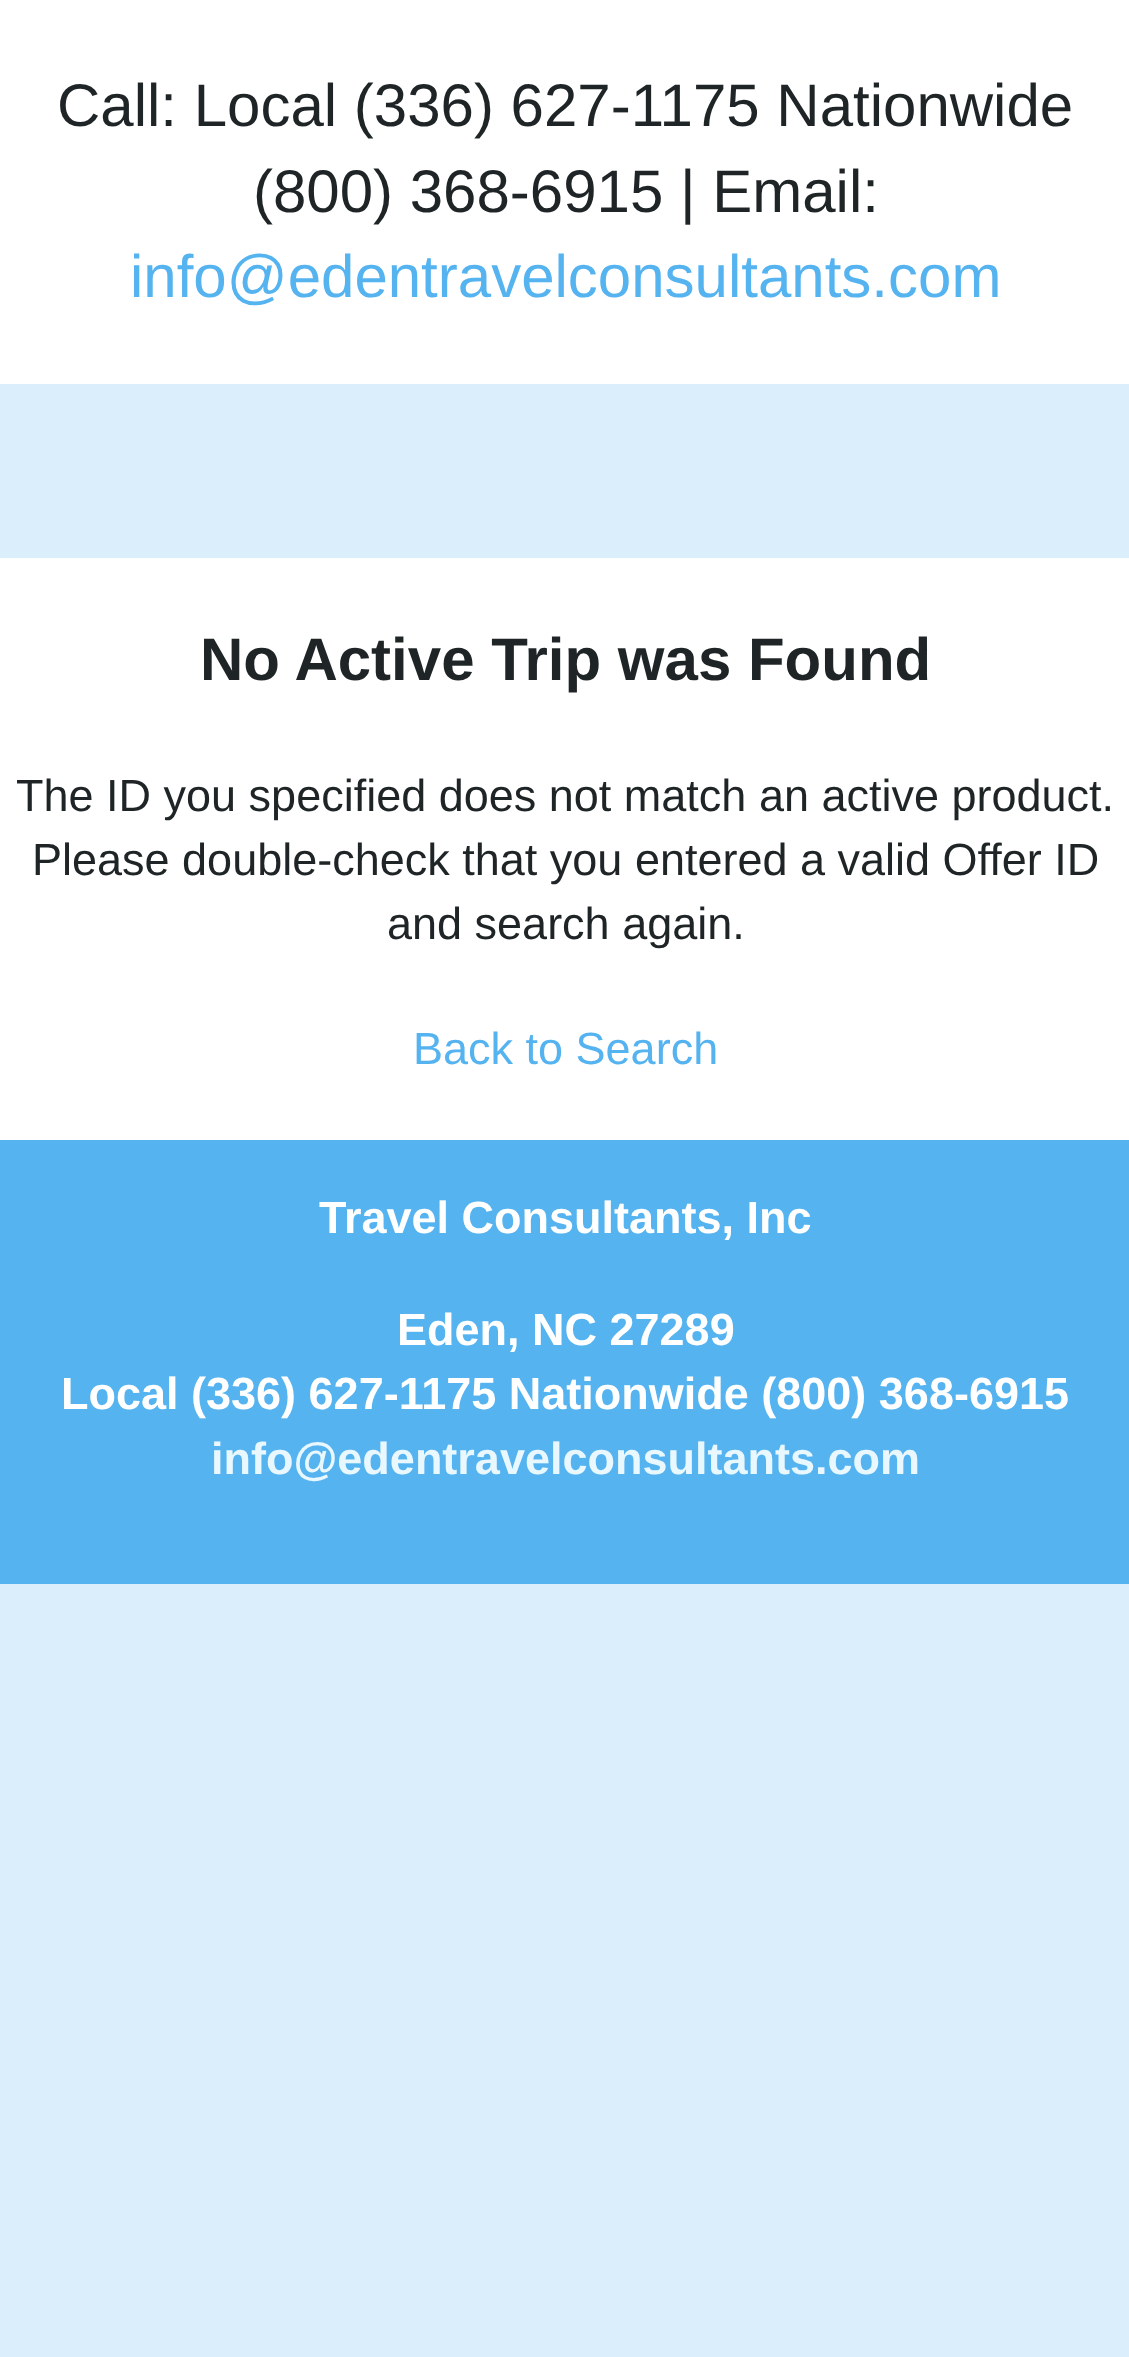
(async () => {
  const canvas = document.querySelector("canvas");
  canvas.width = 1129;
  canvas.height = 2357;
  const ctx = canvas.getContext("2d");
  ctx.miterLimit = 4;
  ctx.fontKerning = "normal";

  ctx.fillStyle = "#daeefb";
  ctx.fillRect(0, 0, 1129, 2357);
  for (const [x, y, w, h, color] of [
    [0, 0, 1129, 384, "#ffffff"],
    [0, 558, 1129, 582, "#ffffff"],
    [0, 1140, 1129, 444, "#55b3f0"],
  ]) {
    ctx.fillStyle = color;
    ctx.fillRect(x, y, w, h);
  }
  ctx.font = "60px Liberation Sans";
  ctx.fillStyle = "#1f2426";
  ctx.fillText("Call: Local (336) 627-1175 Nationwide", 57, 126);
  ctx.fillText("(800) 368-6915 | Email:", 253, 212);
  ctx.fillStyle = "#55b3f0";
  ctx.fillText("info@edentravelconsultants.com", 130, 297);
  ctx.font = "bold 60px Liberation Sans";
  ctx.fillStyle = "#1f2426";
  ctx.fillText("No Active Trip was Found", 200, 680);
  ctx.font = "45px Liberation Sans";
  for (const [text, x, y] of [
    ["The ID you specified does not match an active product.", 16, 811],
    ["Please double-check that you entered a valid Offer ID", 32, 875],
    ["and search again.", 387, 939],
  ]) {
    ctx.fillText(text, x, y);
  }
  ctx.fillStyle = "#55b3f0";
  ctx.fillText("Back to Search", 413, 1064);
  ctx.font = "bold 45px Liberation Sans";
  ctx.fillStyle = "#ffffff";
  for (const [text, x, y] of [
    ["Travel Consultants, Inc", 319, 1233],
    ["Eden, NC 27289", 397, 1345],
    ["Local (336) 627-1175 Nationwide (800) 368-6915", 61, 1409],
  ]) {
    ctx.fillText(text, x, y);
  }
  ctx.fillStyle = "#e9f8ff";
  ctx.fillText("info@edentravelconsultants.com", 211, 1474);
})();
